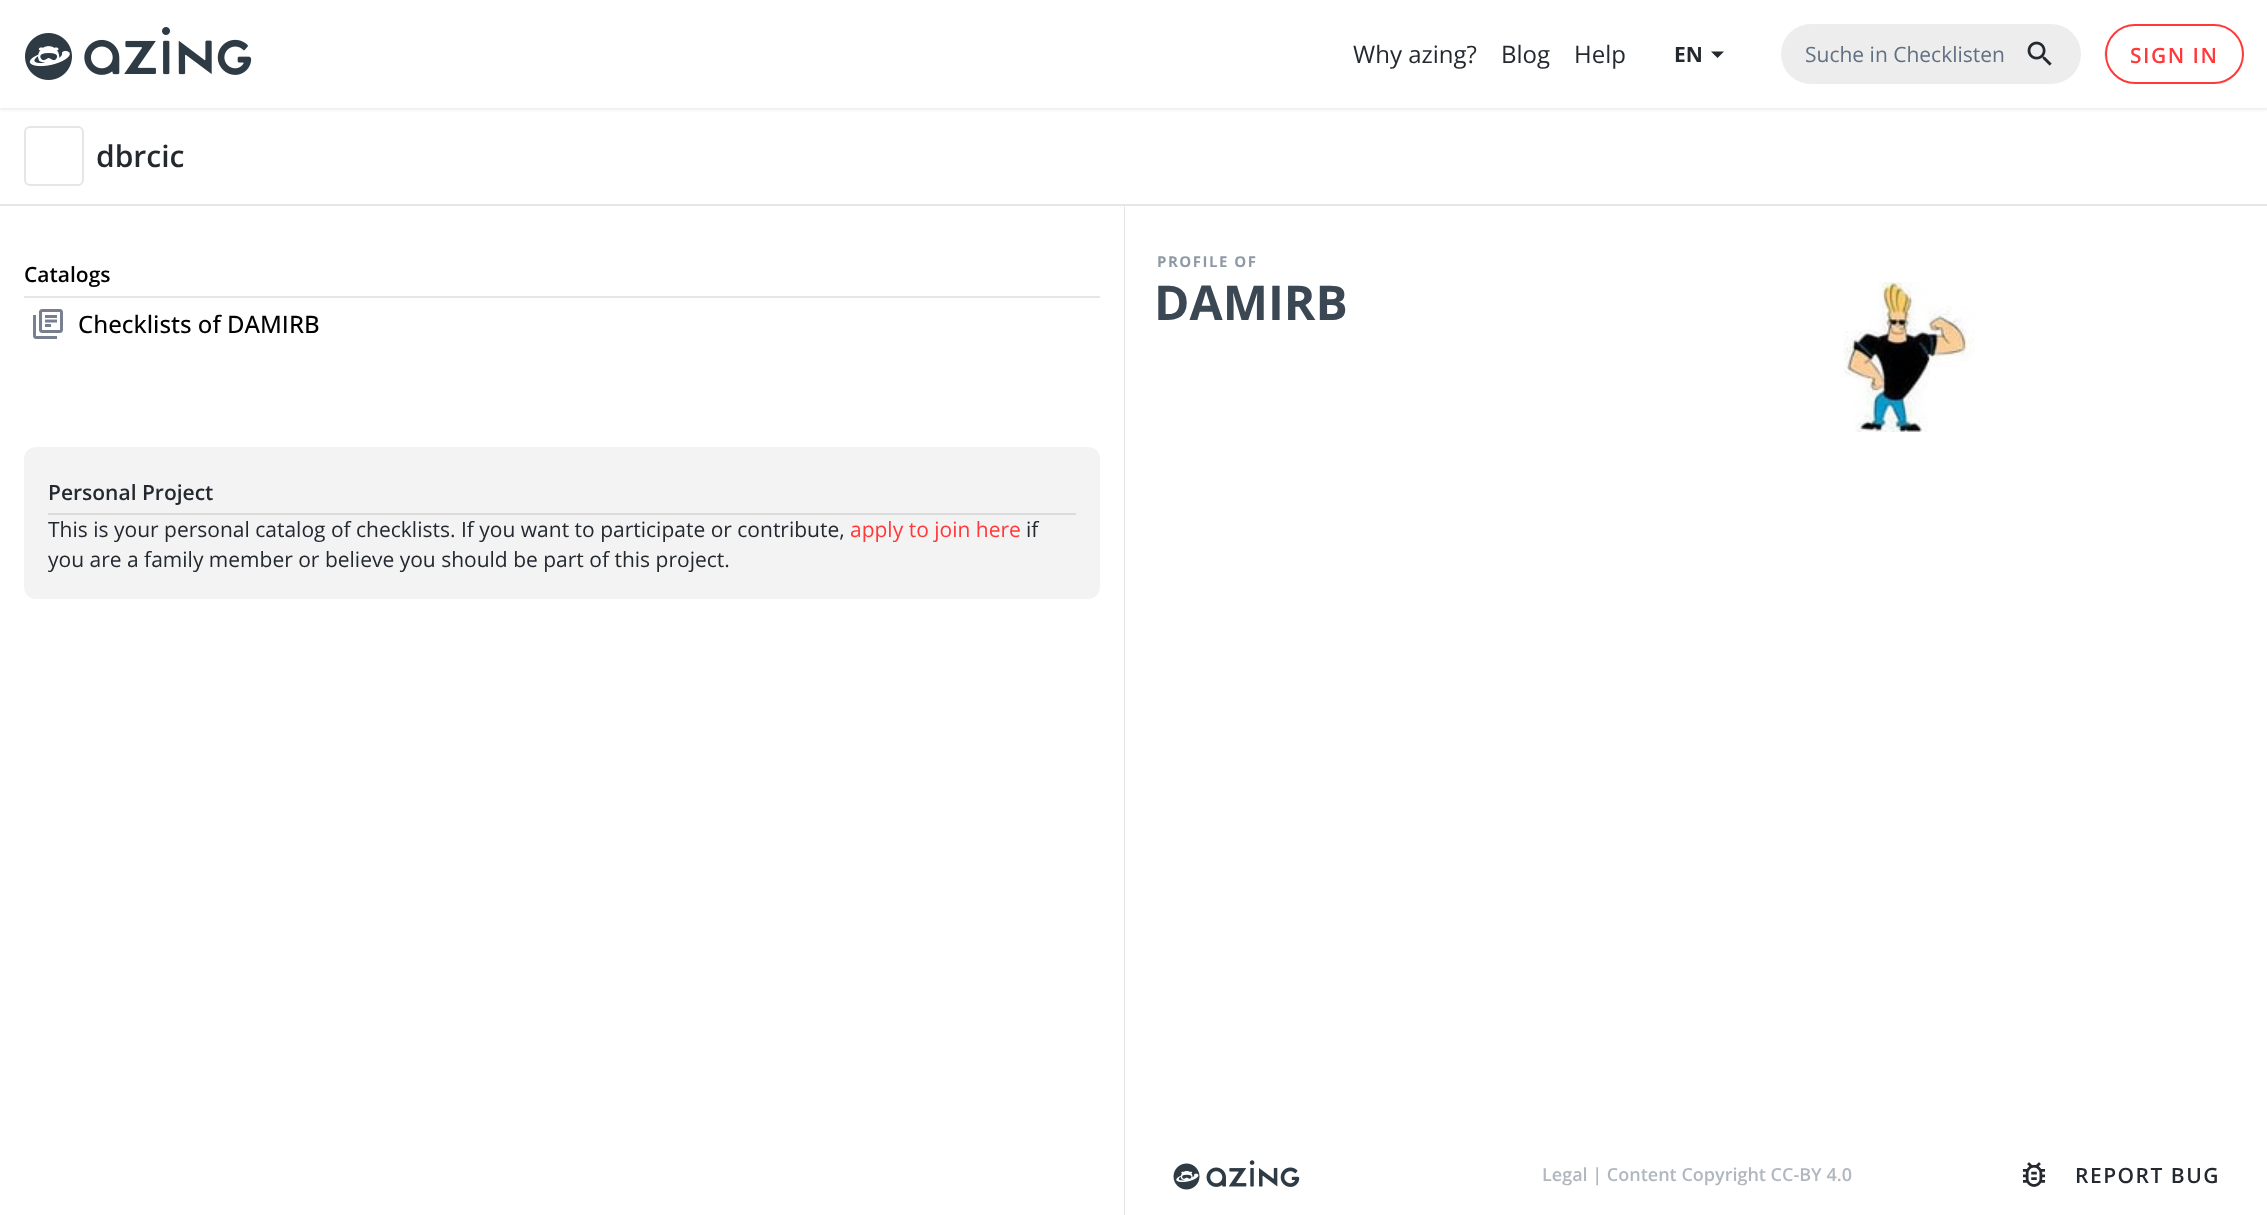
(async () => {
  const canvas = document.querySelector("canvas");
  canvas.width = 2267;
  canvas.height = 1215;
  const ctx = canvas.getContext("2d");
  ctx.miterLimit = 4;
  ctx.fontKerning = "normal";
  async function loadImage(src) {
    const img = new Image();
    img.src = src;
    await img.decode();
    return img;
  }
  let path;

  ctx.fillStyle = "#ffffff";
  ctx.fillRect(0, 0, 2267, 1215);
  ctx.save();
  ctx.beginPath();
  ctx.rect(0, 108, 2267, 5);
  ctx.clip();
  ctx.fillStyle = "#ededed";
  ctx.filter = "blur(1.5px)";
  ctx.beginPath();
  ctx.rect(0, 2, 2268, 108);
  ctx.fill();
  ctx.filter = "none";
  ctx.restore();
  ctx.drawImage(await loadImage("img/1.png"), 25, 27, 227, 53);
  ctx.fillStyle = "#23292f";
  path = new Path2D("M1711 51.5L1717.5 58L1724 51.5Z");
  ctx.fill(path);
  ctx.fillStyle = "#ededed";
  ctx.beginPath();
  ctx.roundRect(1781, 24, 300, 60, 30);
  ctx.fill();
  ctx.drawImage(await loadImage("img/2.png"), 2027, 41, 25, 25);
  ctx.fillStyle = "#ebebeb";
  ctx.beginPath();
  ctx.ellipse(2174, 54, 70, 30, 0, 0, Math.PI * 2);
  ctx.fill();
  ctx.fillStyle = "#ffffff";
  ctx.beginPath();
  ctx.roundRect(2106, 25, 137, 58, 29);
  ctx.fill();
  ctx.strokeStyle = "#ff3939";
  ctx.lineWidth = 2;
  ctx.stroke();
  ctx.fillStyle = "#e6e6e6";
  ctx.fillRect(0, 204, 2267, 2);
  ctx.beginPath();
  ctx.roundRect(25, 127, 58, 58, 5);
  ctx.strokeStyle = "#e6e6e6";
  ctx.stroke();
  ctx.fillRect(1124, 206, 1, 1009);
  ctx.fillRect(24, 296, 1076, 2);
  ctx.drawImage(await loadImage("img/3.png"), 33, 309, 30, 30);
  ctx.fillStyle = "#f3f3f4";
  ctx.beginPath();
  ctx.roundRect(24, 447, 1076, 152, 12);
  ctx.fill();
  ctx.fillStyle = "#dbdbdc";
  ctx.fillRect(48, 513, 1028, 2);
  ctx.drawImage(await loadImage("img/4.png"), 1843, 282, 132, 150);
  ctx.drawImage(await loadImage("img/5.png"), 1173, 1160, 127, 30);
  ctx.drawImage(await loadImage("img/6.png"), 2022, 1162, 24, 25);
  ctx.font = "24px Open Sans";
  ctx.fillStyle = "#23292f";
  for (const [text, x, y] of [
    ["Why azing?", 1353, 63],
    ["Blog", 1501, 63],
    ["Help", 1574, 63],
  ]) {
    ctx.fillText(text, x, y);
  }
  ctx.font = "bold 21px Open Sans";
  ctx.fillText("EN", 1674, 62);
  ctx.font = "21px Open Sans";
  ctx.fillStyle = "#617082";
  ctx.fillText("Suche in Checklisten", 1805, 62);
  ctx.letterSpacing = "1.5px";
  ctx.font = "600 21px Open Sans";
  ctx.fillStyle = "#ff3939";
  ctx.fillText("SIGN IN", 2130, 63);
  ctx.letterSpacing = "0px";
  ctx.font = "600 30px Open Sans";
  ctx.fillStyle = "#23292f";
  ctx.fillText("dbrcic", 96, 167);
  ctx.font = "600 21px Open Sans";
  ctx.fillStyle = "#000000";
  ctx.fillText("Catalogs", 24, 282);
  ctx.font = "500 24px Open Sans";
  ctx.fillText("Checklists of DAMIRB", 78, 333);
  ctx.font = "600 21px Open Sans";
  ctx.fillStyle = "#23292f";
  ctx.fillText("Personal Project", 48, 500);
  ctx.font = "21px Open Sans";
  ctx.fillText("This is your personal catalog of checklists. If you want to participate or contribute,", 48, 537);
  ctx.fillStyle = "#ff3939";
  ctx.fillText("apply to join here", 850, 537);
  ctx.fillStyle = "#23292f";
  ctx.fillText("if", 1026, 537);
  ctx.fillText("you are a family member or believe you should be part of this project.", 48, 567);
  ctx.letterSpacing = "1.5px";
  ctx.font = "bold 15px Open Sans";
  ctx.fillStyle = "#909aa6";
  ctx.fillText("PROFILE OF", 1157, 267);
  ctx.letterSpacing = "0px";
  ctx.font = "bold 48px Open Sans";
  ctx.fillStyle = "#3b4753";
  ctx.fillText("DAMIRB", 1154, 320);
  ctx.font = "600 18px Open Sans";
  ctx.fillStyle = "#b0b7be";
  ctx.fillText("Legal | Content Copyright CC-BY 4.0", 1542, 1181);
  ctx.letterSpacing = "1.5px";
  ctx.font = "600 21px Open Sans";
  ctx.fillStyle = "#23292f";
  ctx.fillText("REPORT BUG", 2075, 1183);
})();
